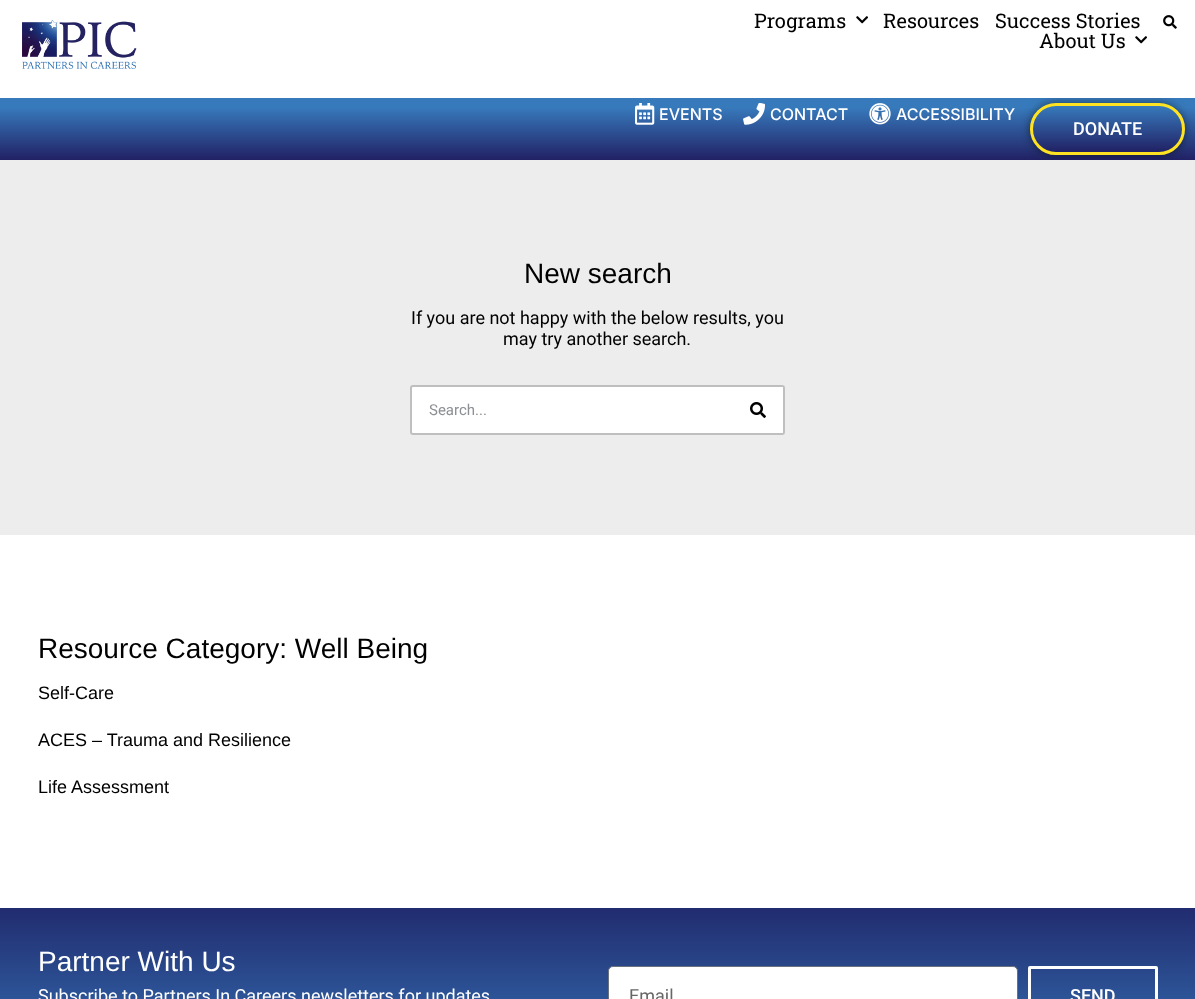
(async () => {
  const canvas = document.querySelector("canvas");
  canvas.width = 1195;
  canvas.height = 999;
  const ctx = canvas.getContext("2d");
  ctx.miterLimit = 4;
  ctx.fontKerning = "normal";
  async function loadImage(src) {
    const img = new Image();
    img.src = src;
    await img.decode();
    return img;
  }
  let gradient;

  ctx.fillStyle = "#ffffff";
  ctx.fillRect(0, 0, 1195, 999);
  ctx.drawImage(await loadImage("img/1.png"), 22, 20, 115, 49);
  ctx.drawImage(await loadImage("img/2.png"), 856, 16, 12, 8);
  ctx.drawImage(await loadImage("img/2.png"), 1135, 36, 12, 8);
  ctx.drawImage(await loadImage("img/3.png"), 1163, 15, 14, 14);
  gradient = ctx.createLinearGradient(598, 98, 598, 160);
  gradient.addColorStop(0.15, "#377abc");
  gradient.addColorStop(1, "#212164");
  ctx.fillStyle = gradient;
  ctx.fillRect(0, 98, 1195, 62);
  ctx.drawImage(await loadImage("img/4.png"), 635, 103, 20, 22);
  ctx.drawImage(await loadImage("img/5.png"), 743, 103, 22, 22);
  ctx.drawImage(await loadImage("img/6.png"), 869, 103, 22, 22);
  ctx.fillStyle = "#ededed";
  ctx.fillRect(0, 160, 1195, 375);
  ctx.save();
  ctx.beginPath();
  ctx.rect(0, 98, 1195, 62);
  ctx.clip();
  ctx.fillStyle = "rgba(0, 0, 0, 0.5)";
  ctx.filter = "blur(5px)";
  ctx.beginPath();
  ctx.roundRect(1030, 103, 155, 52, 26);
  ctx.fill();
  ctx.filter = "none";
  ctx.restore();
  ctx.save();
  ctx.beginPath();
  ctx.roundRect(1030, 103, 155, 52, 26);
  ctx.clip();
  gradient = ctx.createLinearGradient(1108, 106, 1108, 152);
  gradient.addColorStop(0, "#377abc");
  gradient.addColorStop(1, "#212164");
  ctx.fillStyle = gradient;
  ctx.fillRect(1030, 106, 155, 46);
  ctx.restore();
  ctx.beginPath();
  ctx.roundRect(1031.5, 104.5, 152, 49, 24.5);
  ctx.strokeStyle = "#ffe322";
  ctx.lineWidth = 3;
  ctx.stroke();
  ctx.fillStyle = "#ffffff";
  ctx.beginPath();
  ctx.roundRect(411, 386, 373, 48, 2);
  ctx.fill();
  ctx.strokeStyle = "#bfbfbf";
  ctx.lineWidth = 2;
  ctx.stroke();
  ctx.beginPath();
  ctx.roundRect(733, 387, 50, 46, [0, 1, 1, 0]);
  ctx.fill();
  ctx.drawImage(await loadImage("img/7.png"), 750, 402, 16, 16);
  gradient = ctx.createLinearGradient(598, 908, 598, 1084);
  gradient.addColorStop(0, "#212c6f");
  gradient.addColorStop(1, "#377abc");
  ctx.fillStyle = gradient;
  ctx.fillRect(0, 908, 1195, 91);
  ctx.fillStyle = "#ffffff";
  ctx.beginPath();
  ctx.roundRect(608.5, 966.5, 409, 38, 4.5);
  ctx.fill();
  ctx.strokeStyle = "#69727d";
  ctx.lineWidth = 1;
  ctx.stroke();
  ctx.beginPath();
  ctx.roundRect(1029.5, 967.5, 127, 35, 0.5);
  ctx.strokeStyle = "#ffffff";
  ctx.lineWidth = 3;
  ctx.stroke();
  ctx.font = "20px Roboto Slab";
  ctx.fillStyle = "#000000";
  for (const [text, x, y] of [
    ["Programs", 754, 28],
    ["Resources", 883, 28],
    ["Success Stories", 995, 28],
    ["About Us", 1039, 48],
  ]) {
    ctx.fillText(text, x, y);
  }
  ctx.font = "500 16px Inter";
  ctx.fillStyle = "#ffffff";
  for (const [text, x, y] of [
    ["EVENTS", 659, 120],
    ["CONTACT", 770, 120],
    ["ACCESSIBILITY", 896, 120],
  ]) {
    ctx.fillText(text, x, y);
  }
  ctx.font = "500 18px Roboto";
  ctx.fillText("DONATE", 1073, 135);
  ctx.font = "28px Liberation Sans";
  ctx.fillStyle = "#000000";
  ctx.fillText("New search", 524, 283);
  ctx.font = "18px Roboto";
  ctx.fillText("If you are not happy with the below results, you", 411, 324);
  ctx.fillText("may try another search.", 503, 345);
  ctx.font = "15px Roboto";
  ctx.fillStyle = "#8c8f93";
  ctx.fillText("Search...", 429, 415);
  ctx.font = "28px Liberation Sans";
  ctx.fillStyle = "#000000";
  ctx.fillText("Resource Category: Well Being", 38, 658);
  ctx.font = "18px Liberation Sans";
  for (const [text, x, y] of [
    ["Self-Care", 38, 699],
    ["ACES – Trauma and Resilience", 38, 746],
    ["Life Assessment", 38, 793],
  ]) {
    ctx.fillText(text, x, y);
  }
  ctx.font = "28px Liberation Sans";
  ctx.fillStyle = "#ffffff";
  ctx.fillText("Partner With Us", 38, 971);
  ctx.font = "18px Roboto";
  ctx.fillText("Subscribe to Partners In Careers newsletters for updates", 38, 1002);
  ctx.fillStyle = "#666666";
  ctx.fillText("Email", 629, 1002);
  ctx.font = "500 18px Roboto";
  ctx.fillStyle = "#ffffff";
  ctx.fillText("SEND", 1070, 1002);
})();
